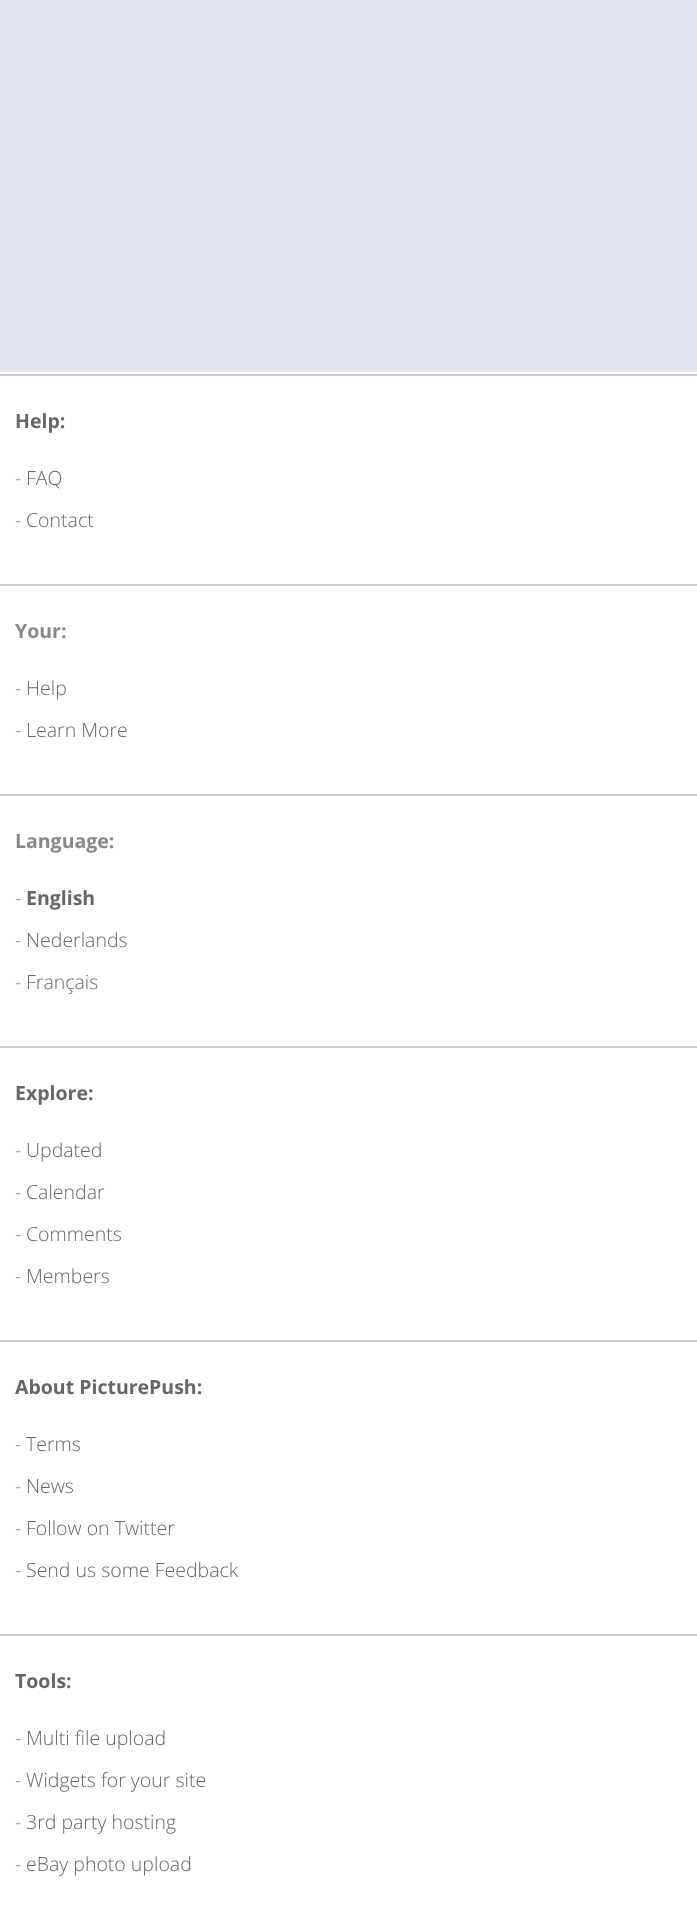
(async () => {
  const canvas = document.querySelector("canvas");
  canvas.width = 697;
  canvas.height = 1927;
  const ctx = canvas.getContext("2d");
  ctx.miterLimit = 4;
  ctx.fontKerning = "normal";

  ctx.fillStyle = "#e3e6f1";
  ctx.fillRect(0, 0, 697, 1927);
  for (const [x, y, w, h, color] of [
    [0, 372, 697, 1555, "#ffffff"],
    [0, 374, 697, 2, "#cccccc"],
    [0, 584, 697, 2, "#cccccc"],
    [0, 794, 697, 2, "#cccccc"],
    [0, 1046, 697, 2, "#cccccc"],
    [0, 1340, 697, 2, "#cccccc"],
    [0, 1634, 697, 2, "#cccccc"],
  ]) {
    ctx.fillStyle = color;
    ctx.fillRect(x, y, w, h);
  }
  ctx.font = "bold 19.5px Open Sans";
  ctx.fillStyle = "#666666";
  ctx.fillText("Help:", 15, 428);
  ctx.font = "300 19.5px Open Sans";
  ctx.fillStyle = "#888888";
  ctx.fillText("-", 15, 485);
  ctx.fillStyle = "#666666";
  ctx.fillText("FAQ", 26, 485);
  ctx.fillStyle = "#888888";
  ctx.fillText("-", 15, 527);
  ctx.fillStyle = "#666666";
  ctx.fillText("Contact", 26, 527);
  ctx.font = "bold 19.5px Open Sans";
  ctx.fillStyle = "#888888";
  ctx.fillText("Your:", 15, 638);
  ctx.font = "300 19.5px Open Sans";
  ctx.fillText("-", 15, 695);
  ctx.fillStyle = "#666666";
  ctx.fillText("Help", 26, 695);
  ctx.fillStyle = "#888888";
  ctx.fillText("-", 15, 737);
  ctx.fillStyle = "#666666";
  ctx.fillText("Learn More", 26, 737);
  ctx.font = "bold 19.5px Open Sans";
  ctx.fillStyle = "#888888";
  ctx.fillText("Language:", 15, 848);
  ctx.font = "300 19.5px Open Sans";
  ctx.fillText("-", 15, 905);
  ctx.font = "bold 19.5px Open Sans";
  ctx.fillStyle = "#666666";
  ctx.fillText("English", 26, 905);
  ctx.font = "300 19.5px Open Sans";
  ctx.fillStyle = "#888888";
  ctx.fillText("-", 15, 947);
  ctx.fillStyle = "#666666";
  ctx.fillText("Nederlands", 26, 947);
  ctx.fillStyle = "#888888";
  ctx.fillText("-", 15, 989);
  ctx.fillStyle = "#666666";
  ctx.fillText("Français", 26, 989);
  ctx.font = "bold 19.5px Open Sans";
  ctx.fillText("Explore:", 15, 1100);
  ctx.font = "300 19.5px Open Sans";
  ctx.fillStyle = "#888888";
  ctx.fillText("-", 15, 1157);
  ctx.fillStyle = "#666666";
  ctx.fillText("Updated", 26, 1157);
  ctx.fillStyle = "#888888";
  ctx.fillText("-", 15, 1199);
  ctx.fillStyle = "#666666";
  ctx.fillText("Calendar", 26, 1199);
  ctx.fillStyle = "#888888";
  ctx.fillText("-", 15, 1241);
  ctx.fillStyle = "#666666";
  ctx.fillText("Comments", 26, 1241);
  ctx.fillStyle = "#888888";
  ctx.fillText("-", 15, 1283);
  ctx.fillStyle = "#666666";
  ctx.fillText("Members", 26, 1283);
  ctx.font = "bold 19.5px Open Sans";
  ctx.fillText("About PicturePush:", 15, 1394);
  ctx.font = "300 19.5px Open Sans";
  ctx.fillStyle = "#888888";
  ctx.fillText("-", 15, 1451);
  ctx.fillStyle = "#666666";
  ctx.fillText("Terms", 26, 1451);
  ctx.fillStyle = "#888888";
  ctx.fillText("-", 15, 1493);
  ctx.fillStyle = "#666666";
  ctx.fillText("News", 26, 1493);
  ctx.fillStyle = "#888888";
  ctx.fillText("-", 15, 1535);
  ctx.fillStyle = "#666666";
  ctx.fillText("Follow on Twitter", 26, 1535);
  ctx.fillStyle = "#888888";
  ctx.fillText("-", 15, 1577);
  ctx.fillStyle = "#666666";
  ctx.fillText("Send us some Feedback", 26, 1577);
  ctx.font = "bold 19.5px Open Sans";
  ctx.fillText("Tools:", 15, 1688);
  ctx.font = "300 19.5px Open Sans";
  ctx.fillStyle = "#888888";
  ctx.fillText("-", 15, 1745);
  ctx.fillStyle = "#666666";
  ctx.fillText("Multi file upload", 26, 1745);
  ctx.fillStyle = "#888888";
  ctx.fillText("-", 15, 1787);
  ctx.fillStyle = "#666666";
  ctx.fillText("Widgets for your site", 26, 1787);
  ctx.fillStyle = "#888888";
  ctx.fillText("-", 15, 1829);
  ctx.fillStyle = "#666666";
  ctx.fillText("3rd party hosting", 26, 1829);
  ctx.fillStyle = "#888888";
  ctx.fillText("-", 15, 1871);
  ctx.fillStyle = "#666666";
  ctx.fillText("eBay photo upload", 26, 1871);
})();
